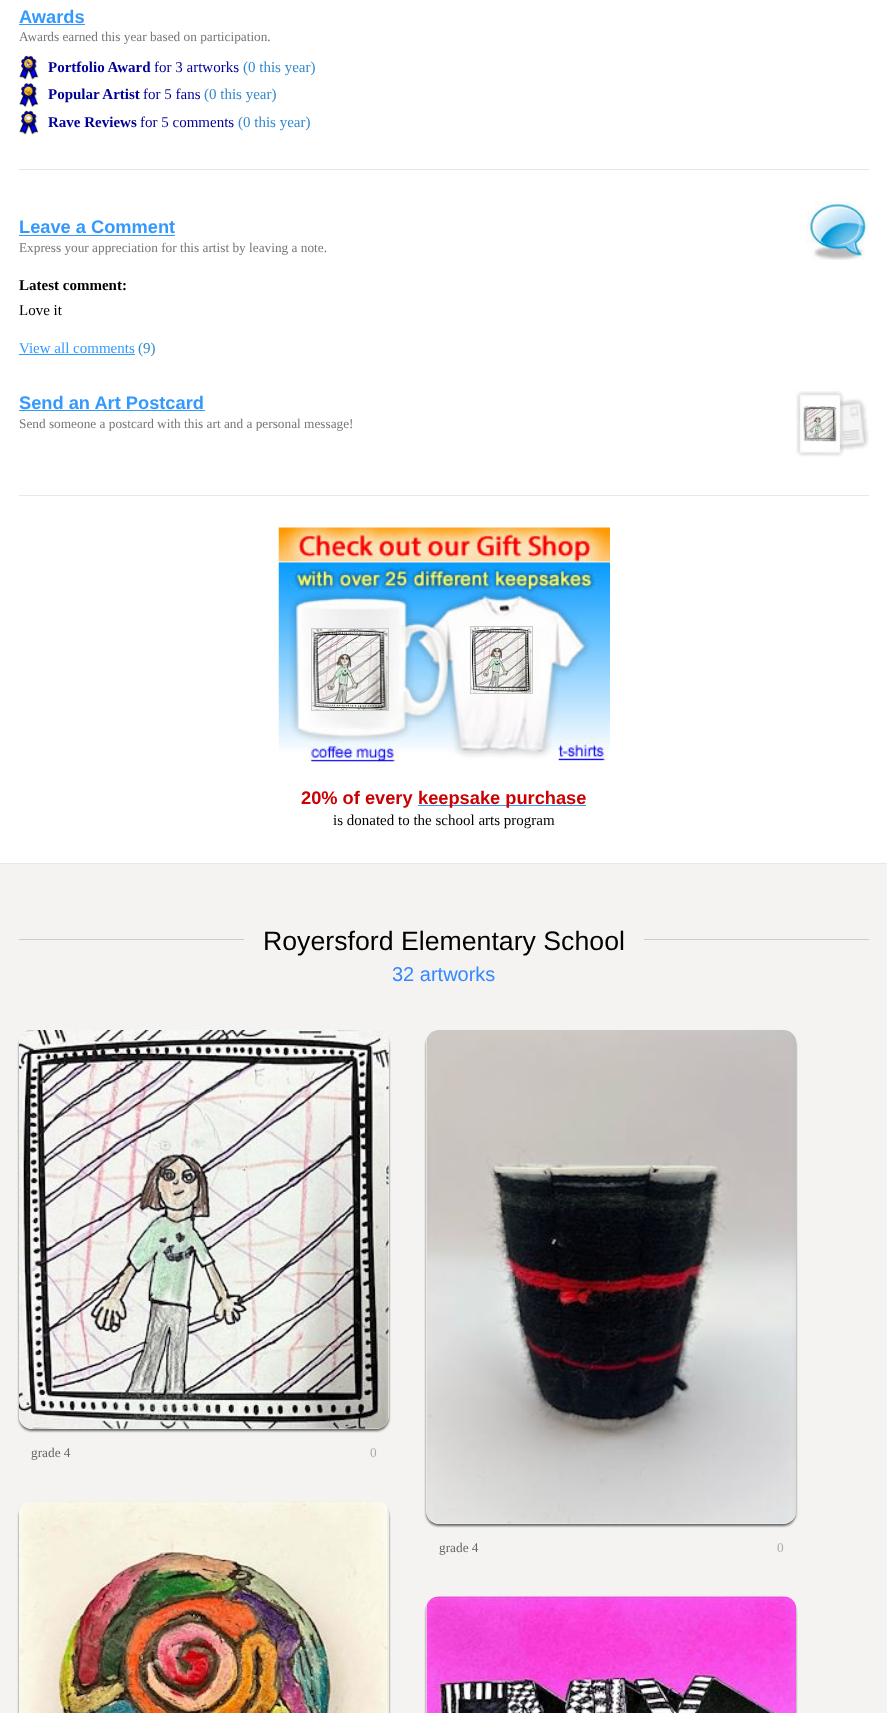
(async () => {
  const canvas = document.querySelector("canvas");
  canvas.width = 887;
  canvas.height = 1713;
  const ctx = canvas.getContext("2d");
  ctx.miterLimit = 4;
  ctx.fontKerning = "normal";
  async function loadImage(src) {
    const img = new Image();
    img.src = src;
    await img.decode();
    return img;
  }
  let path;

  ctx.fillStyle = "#f4f3f1";
  ctx.fillRect(0, 0, 887, 1713);
  for (const [x, y, w, h, color] of [
    [0, 0, 887, 863, "#ffffff"],
    [0, 863, 887, 1, "#e8e8e8"],
    [19, 24, 66, 1, "#3399ff"],
  ]) {
    ctx.fillStyle = color;
    ctx.fillRect(x, y, w, h);
  }
  ctx.drawImage(await loadImage("img/1.png"), 19, 55, 20, 25);
  ctx.drawImage(await loadImage("img/2.png"), 19, 83, 20, 25);
  ctx.drawImage(await loadImage("img/3.png"), 19, 110, 20, 25);
  ctx.fillStyle = "#e8e8e8";
  ctx.fillRect(19, 169, 850, 1);
  ctx.fillStyle = "#3399ff";
  ctx.fillRect(19, 235, 156, 1);
  ctx.drawImage(await loadImage("img/4.png"), 806, 201, 62, 59);
  ctx.fillRect(19, 354, 116, 1);
  ctx.fillRect(19, 410, 186, 1);
  ctx.drawImage(await loadImage("img/5.png"), 795, 389, 74, 68);
  ctx.drawImage(await loadImage("img/6.png"), 803, 406, 34, 36);
  ctx.fillStyle = "#e8e8e8";
  ctx.fillRect(19, 495, 850, 1);
  ctx.drawImage(await loadImage("img/7.png"), 278, 527, 332, 235);
  ctx.drawImage(await loadImage("img/8.png"), 312, 629, 76, 81);
  ctx.strokeStyle = "#cccccc";
  ctx.strokeRect(311.5, 628.5, 77, 82);
  ctx.drawImage(await loadImage("img/9.png"), 471, 627, 61, 66);
  ctx.strokeRect(470.5, 626.5, 62, 67);
  for (const [x, y, w, h, color] of [
    [418, 805, 168, 1, "#3399ff"],
    [19, 939, 225, 1, "#cccccc"],
    [644, 939, 225, 1, "#cccccc"],
  ]) {
    ctx.fillStyle = color;
    ctx.fillRect(x, y, w, h);
  }
  ctx.save();
  path = new Path2D("M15 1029H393V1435H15ZM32 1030H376C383 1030 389 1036 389 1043V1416C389 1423 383 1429 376 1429H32C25 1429 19 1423 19 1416V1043C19 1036 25 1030 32 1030Z");
  ctx.clip(path, "evenodd");
  ctx.fillStyle = "#666666";
  ctx.filter = "blur(1px)";
  ctx.beginPath();
  ctx.roundRect(19, 1033, 370, 398, 13);
  ctx.fill();
  ctx.filter = "none";
  ctx.restore();
  ctx.drawImage(await loadImage("img/10.png"), 19, 1030, 370, 399);
  ctx.save();
  path = new Path2D("M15 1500H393V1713H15ZM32 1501H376C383 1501 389 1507 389 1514V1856C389 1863 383 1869 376 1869H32C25 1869 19 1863 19 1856V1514C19 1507 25 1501 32 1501Z");
  ctx.clip(path, "evenodd");
  ctx.fillStyle = "#666666";
  ctx.filter = "blur(1px)";
  ctx.beginPath();
  ctx.roundRect(19, 1504, 370, 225, 13);
  ctx.fill();
  ctx.filter = "none";
  ctx.restore();
  ctx.drawImage(await loadImage("img/11.png"), 19, 1501, 370, 212);
  ctx.save();
  path = new Path2D("M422 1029H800V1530H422ZM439 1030H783C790 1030 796 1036 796 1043V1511C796 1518 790 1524 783 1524H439C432 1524 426 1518 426 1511V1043C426 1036 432 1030 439 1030Z");
  ctx.clip(path, "evenodd");
  ctx.fillStyle = "#666666";
  ctx.filter = "blur(1px)";
  ctx.beginPath();
  ctx.roundRect(426, 1033, 370, 493, 13);
  ctx.fill();
  ctx.filter = "none";
  ctx.restore();
  ctx.drawImage(await loadImage("img/12.png"), 426, 1030, 370, 494);
  ctx.save();
  path = new Path2D("M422 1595H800V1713H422ZM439 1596H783C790 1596 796 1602 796 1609V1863C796 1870 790 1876 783 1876H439C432 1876 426 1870 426 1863V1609C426 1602 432 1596 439 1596Z");
  ctx.clip(path, "evenodd");
  ctx.fillStyle = "#666666";
  ctx.filter = "blur(1px)";
  ctx.beginPath();
  ctx.roundRect(426, 1599, 370, 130, 13);
  ctx.fill();
  ctx.filter = "none";
  ctx.restore();
  ctx.drawImage(await loadImage("img/13.png"), 426, 1596, 370, 117);
  ctx.font = "bold 18.25px Liberation Sans";
  ctx.fillStyle = "#3399ff";
  ctx.fillText("Awards", 19, 23);
  ctx.font = "13.3px Liberation Serif";
  ctx.fillStyle = "#777777";
  ctx.fillText("Awards earned this year based on participation.", 19, 41);
  ctx.font = "bold 15px Liberation Serif";
  ctx.fillStyle = "#000099";
  ctx.fillText("Portfolio Award", 48, 72);
  ctx.font = "15px Liberation Serif";
  ctx.fillText("for 3 artworks", 154, 72);
  ctx.fillStyle = "#3388cc";
  ctx.fillText("(0 this year)", 243, 72);
  ctx.font = "bold 15px Liberation Serif";
  ctx.fillStyle = "#000099";
  ctx.fillText("Popular Artist", 48, 99);
  ctx.font = "15px Liberation Serif";
  ctx.fillText("for 5 fans", 143, 99);
  ctx.fillStyle = "#3388cc";
  ctx.fillText("(0 this year)", 204, 99);
  ctx.font = "bold 15px Liberation Serif";
  ctx.fillStyle = "#000099";
  ctx.fillText("Rave Reviews", 48, 127);
  ctx.font = "15px Liberation Serif";
  ctx.fillText("for 5 comments", 140, 127);
  ctx.fillStyle = "#3388cc";
  ctx.fillText("(0 this year)", 238, 127);
  ctx.font = "bold 18.25px Liberation Sans";
  ctx.fillStyle = "#3399ff";
  ctx.fillText("Leave a Comment", 19, 233);
  ctx.font = "13.3px Liberation Serif";
  ctx.fillStyle = "#777777";
  ctx.fillText("Express your appreciation for this artist by leaving a note.", 19, 252);
  ctx.font = "bold 15px Liberation Serif";
  ctx.fillStyle = "#000000";
  ctx.fillText("Latest comment:", 19, 290);
  ctx.font = "15px Liberation Serif";
  ctx.fillText("Love it", 19, 315);
  ctx.fillStyle = "#3399ff";
  ctx.fillText("View all comments", 19, 353);
  ctx.fillStyle = "#3388cc";
  ctx.fillText("(9)", 138, 353);
  ctx.font = "bold 18.25px Liberation Sans";
  ctx.fillStyle = "#3399ff";
  ctx.fillText("Send an Art Postcard", 19, 409);
  ctx.font = "13.3px Liberation Serif";
  ctx.fillStyle = "#777777";
  ctx.fillText("Send someone a postcard with this art and a personal message!", 19, 428);
  ctx.font = "bold 18.25px Liberation Sans";
  ctx.fillStyle = "#cc0000";
  ctx.fillText("20% of every", 301, 804);
  ctx.fillText("keepsake purchase", 418, 804);
  ctx.font = "15px Liberation Serif";
  ctx.fillStyle = "#000000";
  ctx.fillText("is donated to the school arts program", 333, 825);
  ctx.font = "26.7px Liberation Sans";
  ctx.fillText("Royersford Elementary School", 263, 950);
  ctx.font = "20px Liberation Sans";
  ctx.fillStyle = "#3388ff";
  ctx.fillText("32 artworks", 392, 981);
  ctx.font = "13.3px Liberation Serif";
  ctx.fillStyle = "#666666";
  ctx.fillText("grade 4", 31, 1457);
  ctx.fillStyle = "#aaaaaa";
  ctx.fillText("0", 370, 1457);
  ctx.fillStyle = "#666666";
  ctx.fillText("grade 4", 439, 1552);
  ctx.fillStyle = "#aaaaaa";
  ctx.fillText("0", 777, 1552);
})();
